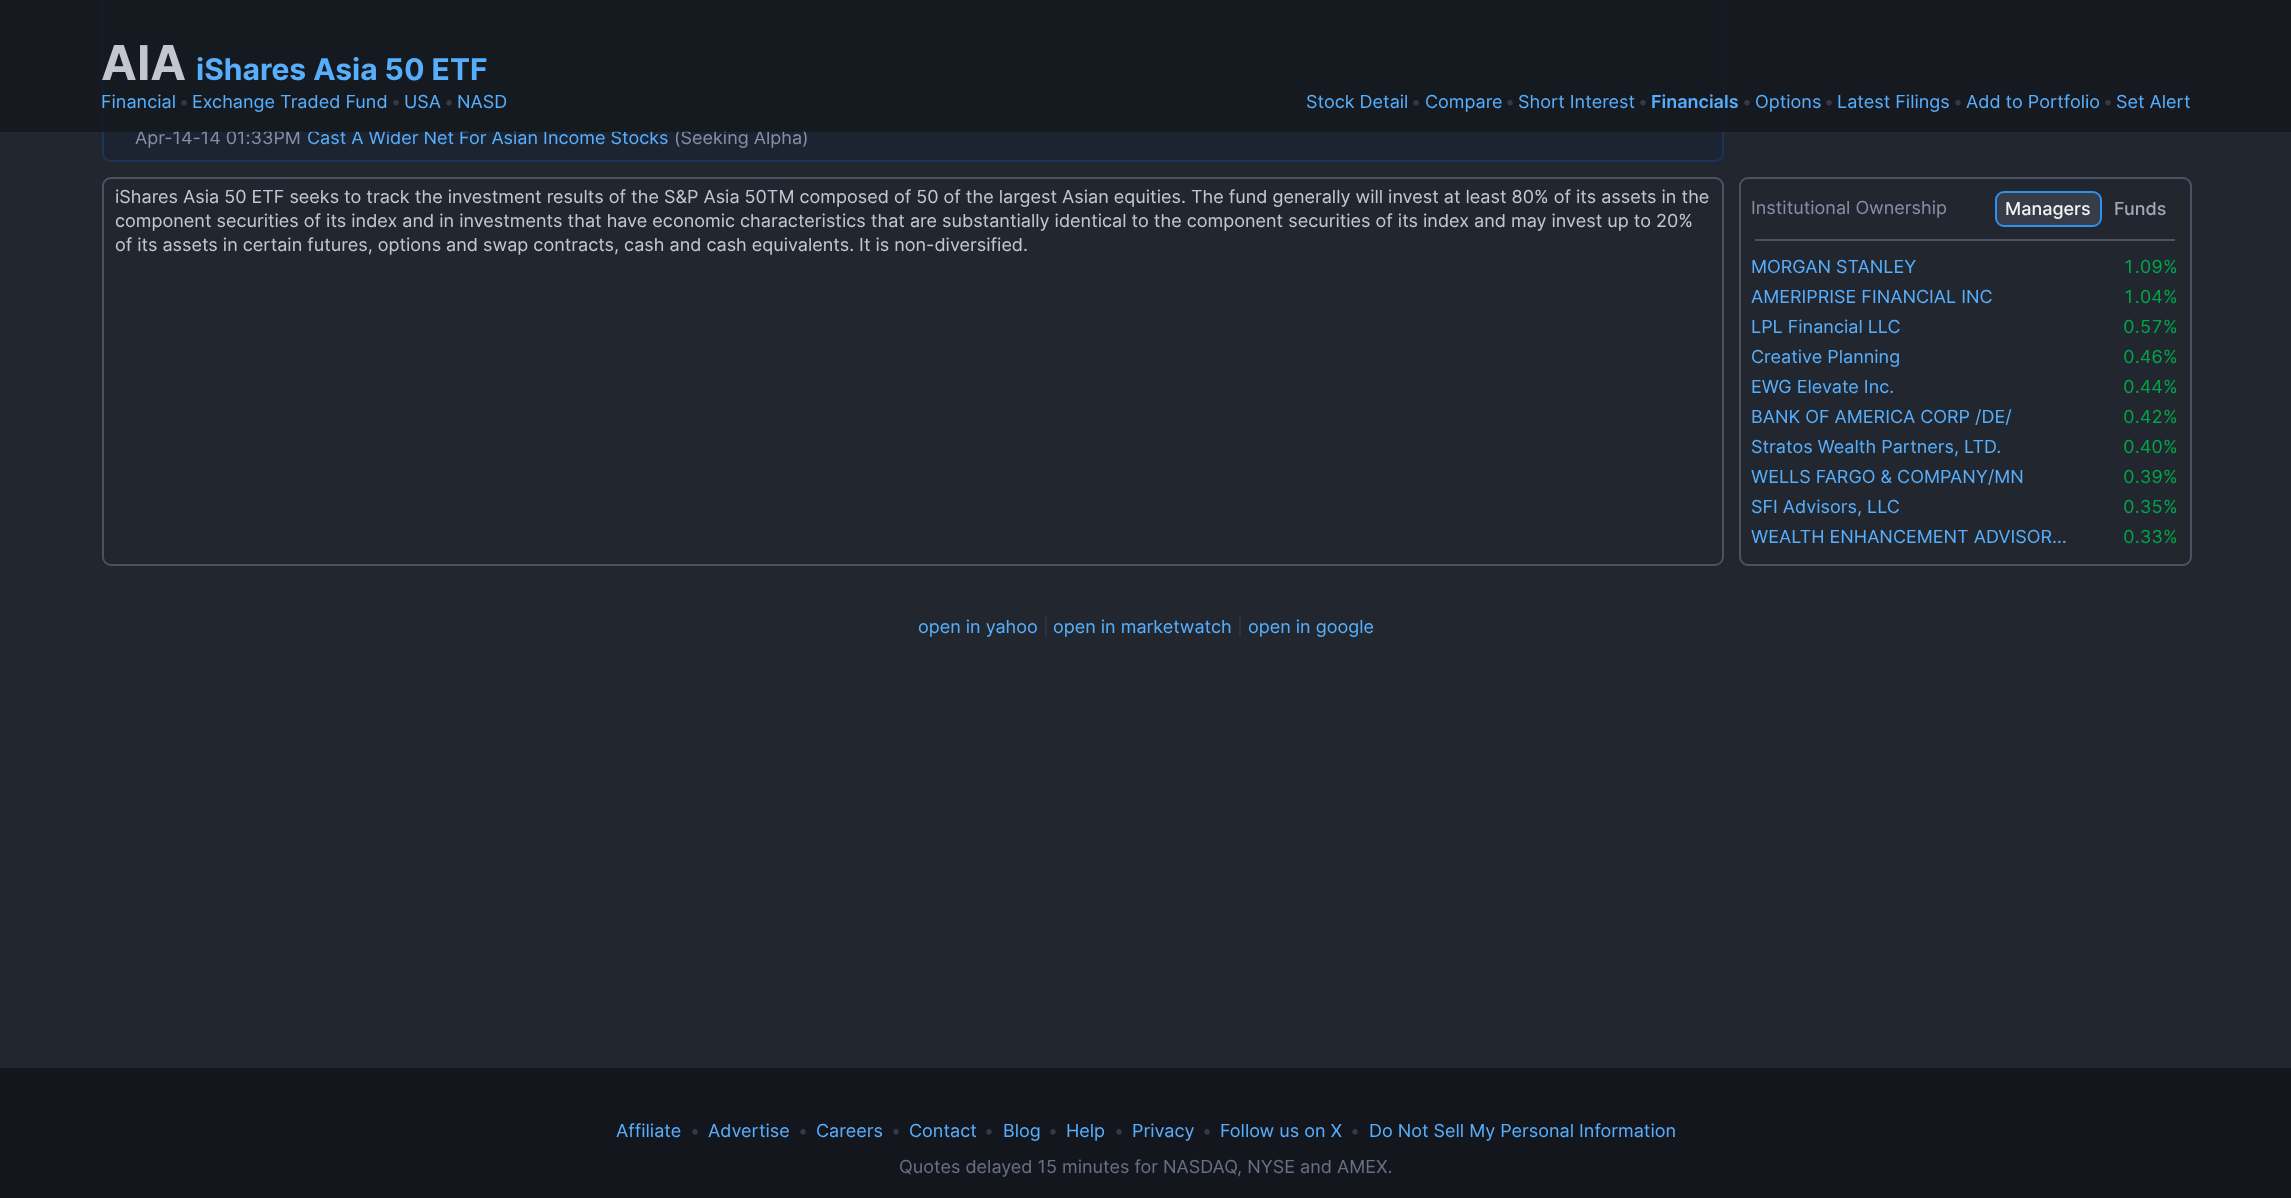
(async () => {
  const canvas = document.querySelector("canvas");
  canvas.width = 2291;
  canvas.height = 1198;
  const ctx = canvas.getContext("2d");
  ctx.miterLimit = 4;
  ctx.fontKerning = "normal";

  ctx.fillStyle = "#22262f";
  ctx.fillRect(0, 0, 2291, 1198);
  ctx.fillStyle = "#1c2331";
  ctx.beginPath();
  ctx.roundRect(103, -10, 1620, 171, 8);
  ctx.fill();
  ctx.strokeStyle = "#1b3559";
  ctx.lineWidth = 2;
  ctx.stroke();
  ctx.beginPath();
  ctx.roundRect(103, 178, 1620, 387, 8);
  ctx.strokeStyle = "#4c5263";
  ctx.stroke();
  ctx.beginPath();
  ctx.roundRect(1740, 178, 451, 387, 8);
  ctx.stroke();
  ctx.fillStyle = "#373c49";
  ctx.beginPath();
  ctx.roundRect(1996, 192, 105, 34, 8);
  ctx.fill();
  ctx.strokeStyle = "#2f91ef";
  ctx.stroke();
  ctx.fillStyle = "#4c5263";
  ctx.fillRect(1755, 239, 420, 2);
  ctx.fillStyle = "#14161d";
  ctx.fillRect(0, 1068, 2291, 130);
  ctx.font = "18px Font";
  ctx.fillStyle = "#868ea5";
  ctx.fillText("Apr-14-14 01:33PM", 135, 144);
  ctx.save();
  ctx.beginPath();
  ctx.rect(308, 123, 361, 30);
  ctx.clip();
  ctx.fillStyle = "#57aefb";
  ctx.fillText("Cast A Wider Net For Asian Income Stocks", 307, 144);
  ctx.restore();
  ctx.fillText("(Seeking Alpha)", 674, 144);
  ctx.fillStyle = "rgba(20, 22, 29, 0.8)";
  ctx.fillRect(0, 0, 2291, 132);
  ctx.fillStyle = "#57aefb";
  ctx.fillText("Exchange Traded Fund", 192, 108);
  ctx.fillText("NASD", 457, 108);
  ctx.fillStyle = "#353945";
  ctx.fillText("•", 444, 108);
  ctx.fillStyle = "#57aefb";
  ctx.fillText("USA", 404, 108);
  ctx.fillStyle = "#353945";
  ctx.fillText("•", 391, 108);
  ctx.fillText("•", 179, 108);
  ctx.fillStyle = "#57aefb";
  ctx.fillText("Financial", 101, 108);
  ctx.fillText("Set Alert", 2116, 108);
  ctx.fillStyle = "#353945";
  ctx.fillText("•", 2103, 108);
  ctx.fillStyle = "#57aefb";
  ctx.fillText("Add to Portfolio", 1966, 108);
  ctx.fillStyle = "#353945";
  ctx.fillText("•", 1953, 108);
  ctx.fillStyle = "#57aefb";
  ctx.fillText("Latest Filings", 1837, 108);
  ctx.fillStyle = "#353945";
  ctx.fillText("•", 1824, 108);
  ctx.fillStyle = "#57aefb";
  ctx.fillText("Options", 1755, 108);
  ctx.fillStyle = "#353945";
  ctx.fillText("•", 1742, 108);
  ctx.font = "600 18px Font";
  ctx.fillStyle = "#57aefb";
  ctx.fillText("Financials", 1651, 108);
  ctx.font = "18px Font";
  ctx.fillStyle = "#353945";
  ctx.fillText("•", 1638, 108);
  ctx.fillStyle = "#57aefb";
  ctx.fillText("Short Interest", 1518, 108);
  ctx.fillStyle = "#353945";
  ctx.fillText("•", 1505, 108);
  ctx.fillStyle = "#57aefb";
  ctx.fillText("Compare", 1425, 108);
  ctx.fillStyle = "#353945";
  ctx.fillText("•", 1411, 108);
  ctx.fillStyle = "#57aefb";
  ctx.fillText("Stock Detail", 1306, 108);
  ctx.font = "bold 30px Font";
  ctx.fillText("iShares Asia 50 ETF", 196, 80);
  ctx.font = "bold 48px Font";
  ctx.fillStyle = "#c3c6d0";
  ctx.fillText("AIA", 101, 80);
  ctx.font = "18px Font";
  for (const [text, x, y] of [
    ["iShares Asia 50 ETF seeks to track the investment results of the S&P Asia 50TM composed of 50 of the largest Asian equities. The fund generally will invest at least 80% of its assets in the", 115, 203],
    ["component securities of its index and in investments that have economic characteristics that are substantially identical to the component securities of its index and may invest up to 20%", 115, 227],
    ["of its assets in certain futures, options and swap contracts, cash and cash equivalents. It is non-diversified.", 115, 251],
  ]) {
    ctx.fillText(text, x, y);
  }
  ctx.fillStyle = "#868ea5";
  ctx.fillText("Institutional Ownership", 1751, 214);
  ctx.font = "500 18px Font";
  ctx.fillStyle = "#f3f3f5";
  ctx.fillText("Managers", 2005, 215);
  ctx.fillStyle = "#a3a8b9";
  ctx.fillText("Funds", 2114, 215);
  ctx.font = "18px Font";
  ctx.fillStyle = "#57aefb";
  ctx.fillText("MORGAN STANLEY", 1751, 273);
  ctx.font = "18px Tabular";
  ctx.fillStyle = "#00a449";
  ctx.fillText("1.09%", 2123, 273);
  ctx.font = "18px Font";
  ctx.fillStyle = "#57aefb";
  ctx.fillText("AMERIPRISE FINANCIAL INC", 1751, 303);
  ctx.font = "18px Tabular";
  ctx.fillStyle = "#00a449";
  ctx.fillText("1.04%", 2123, 303);
  ctx.font = "18px Font";
  ctx.fillStyle = "#57aefb";
  ctx.fillText("LPL Financial LLC", 1751, 333);
  ctx.font = "18px Tabular";
  ctx.fillStyle = "#00a449";
  ctx.fillText("0.57%", 2123, 333);
  ctx.font = "18px Font";
  ctx.fillStyle = "#57aefb";
  ctx.fillText("Creative Planning", 1751, 363);
  ctx.font = "18px Tabular";
  ctx.fillStyle = "#00a449";
  ctx.fillText("0.46%", 2123, 363);
  ctx.font = "18px Font";
  ctx.fillStyle = "#57aefb";
  ctx.fillText("EWG Elevate Inc.", 1751, 393);
  ctx.font = "18px Tabular";
  ctx.fillStyle = "#00a449";
  ctx.fillText("0.44%", 2123, 393);
  ctx.font = "18px Font";
  ctx.fillStyle = "#57aefb";
  ctx.fillText("BANK OF AMERICA CORP /DE/", 1751, 423);
  ctx.font = "18px Tabular";
  ctx.fillStyle = "#00a449";
  ctx.fillText("0.42%", 2123, 423);
  ctx.font = "18px Font";
  ctx.fillStyle = "#57aefb";
  ctx.fillText("Stratos Wealth Partners, LTD.", 1751, 453);
  ctx.font = "18px Tabular";
  ctx.fillStyle = "#00a449";
  ctx.fillText("0.40%", 2123, 453);
  ctx.font = "18px Font";
  ctx.fillStyle = "#57aefb";
  ctx.fillText("WELLS FARGO & COMPANY/MN", 1751, 483);
  ctx.font = "18px Tabular";
  ctx.fillStyle = "#00a449";
  ctx.fillText("0.39%", 2123, 483);
  ctx.font = "18px Font";
  ctx.fillStyle = "#57aefb";
  ctx.fillText("SFI Advisors, LLC", 1751, 513);
  ctx.font = "18px Tabular";
  ctx.fillStyle = "#00a449";
  ctx.fillText("0.35%", 2123, 513);
  ctx.font = "18px Font";
  ctx.fillStyle = "#57aefb";
  ctx.fillText("WEALTH ENHANCEMENT ADVISOR…", 1751, 543);
  ctx.font = "18px Tabular";
  ctx.fillStyle = "#00a449";
  ctx.fillText("0.33%", 2123, 543);
  ctx.font = "18px Font";
  ctx.fillStyle = "#57aefb";
  ctx.fillText("open in yahoo", 918, 633);
  ctx.fillStyle = "#353945";
  ctx.fillText("|", 1043, 633);
  ctx.fillStyle = "#57aefb";
  ctx.fillText("open in marketwatch", 1053, 633);
  ctx.fillStyle = "#353945";
  ctx.fillText("|", 1237, 633);
  ctx.fillStyle = "#57aefb";
  ctx.fillText("open in google", 1248, 633);
  ctx.fillText("Affiliate", 616, 1137);
  ctx.fillStyle = "#353945";
  ctx.fillText("•", 690, 1137);
  ctx.fillStyle = "#57aefb";
  ctx.fillText("Advertise", 708, 1137);
  ctx.fillStyle = "#353945";
  ctx.fillText("•", 798, 1137);
  ctx.fillStyle = "#57aefb";
  ctx.fillText("Careers", 816, 1137);
  ctx.fillStyle = "#353945";
  ctx.fillText("•", 891, 1137);
  ctx.fillStyle = "#57aefb";
  ctx.fillText("Contact", 909, 1137);
  ctx.fillStyle = "#353945";
  ctx.fillText("•", 984, 1137);
  ctx.fillStyle = "#57aefb";
  ctx.fillText("Blog", 1003, 1137);
  ctx.fillStyle = "#353945";
  ctx.fillText("•", 1048, 1137);
  ctx.fillStyle = "#57aefb";
  ctx.fillText("Help", 1066, 1137);
  ctx.fillStyle = "#353945";
  ctx.fillText("•", 1114, 1137);
  ctx.fillStyle = "#57aefb";
  ctx.fillText("Privacy", 1132, 1137);
  ctx.fillStyle = "#353945";
  ctx.fillText("•", 1202, 1137);
  ctx.fillStyle = "#57aefb";
  ctx.fillText("Follow us on X", 1220, 1137);
  ctx.fillStyle = "#353945";
  ctx.fillText("•", 1350, 1137);
  ctx.fillStyle = "#57aefb";
  ctx.fillText("Do Not Sell My Personal Information", 1369, 1137);
  ctx.fillStyle = "#676f85";
  ctx.fillText("Quotes delayed 15 minutes for NASDAQ, NYSE and AMEX.", 899, 1173);
})();
